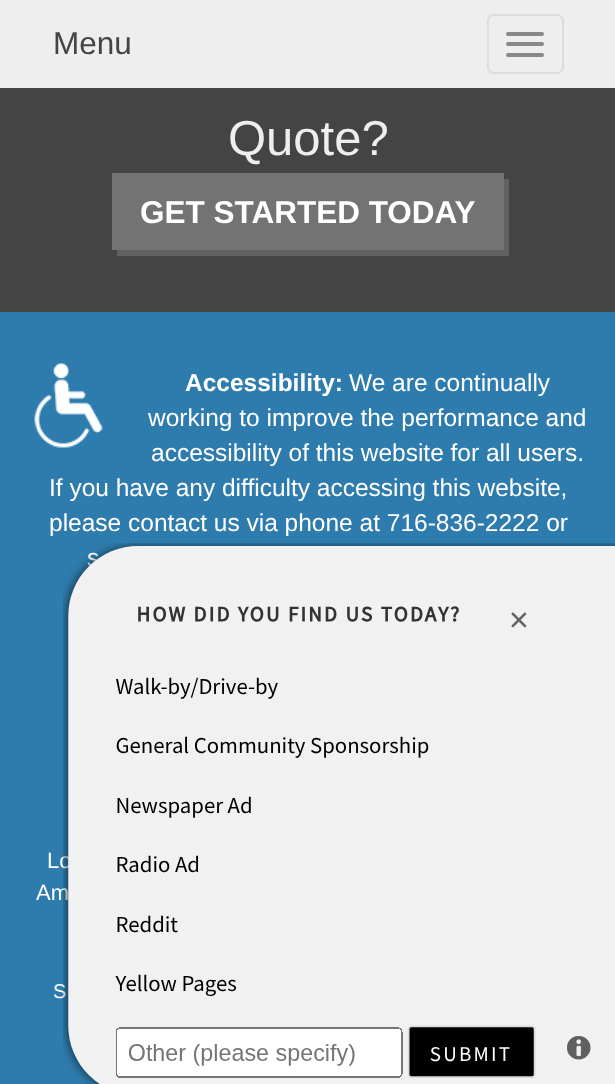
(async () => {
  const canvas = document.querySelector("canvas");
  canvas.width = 615;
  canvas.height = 1084;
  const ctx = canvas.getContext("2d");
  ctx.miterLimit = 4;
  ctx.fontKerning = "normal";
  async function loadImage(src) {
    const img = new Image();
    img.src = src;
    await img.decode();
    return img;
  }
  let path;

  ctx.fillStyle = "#444444";
  ctx.fillRect(0, 0, 615, 1084);
  ctx.fillStyle = "#eeeeee";
  ctx.fillRect(0, 0, 615, 88);
  ctx.beginPath();
  ctx.roundRect(488, 15, 75, 58, 6);
  ctx.strokeStyle = "#dddddd";
  ctx.lineWidth = 2;
  ctx.stroke();
  ctx.fillStyle = "#888888";
  ctx.beginPath();
  ctx.roundRect(506, 32, 38, 4, 2);
  ctx.fill();
  ctx.beginPath();
  ctx.roundRect(506, 42, 38, 4, 2);
  ctx.fill();
  ctx.beginPath();
  ctx.roundRect(506, 53, 38, 4, 2);
  ctx.fill();
  ctx.fillStyle = "#616161";
  path = new Path2D("M117 250V256H509V179H504V250Z");
  ctx.fill(path);
  ctx.fillStyle = "#737373";
  ctx.fillRect(112, 173, 392, 77);
  ctx.fillStyle = "#2e7cad";
  ctx.fillRect(0, 312, 615, 772);
  ctx.drawImage(await loadImage("img/1.png"), 34, 363, 69, 85);
  ctx.font = "31.5px Liberation Sans";
  ctx.fillStyle = "#444444";
  ctx.fillText("Menu", 53, 54);
  ctx.font = "49px Liberation Sans";
  ctx.fillStyle = "#eeeeee";
  ctx.fillText("Quote?", 228, 155);
  ctx.font = "bold 31.5px Liberation Sans";
  ctx.fillStyle = "#ffffff";
  ctx.fillText("GET STARTED TODAY", 140, 223);
  ctx.font = "bold 24.5px Liberation Sans";
  ctx.fillText("Accessibility:", 185, 391);
  ctx.font = "24.5px Liberation Sans";
  for (const [text, x, y] of [
    ["We are continually", 349, 391],
    ["working to improve the performance and", 148, 426],
    ["accessibility of this website for all users.", 151, 461],
    ["If you have any difficulty accessing this website,", 49, 496],
    ["please contact us via phone at 716-836-2222 or", 49, 531],
    ["s", 87, 566],
  ]) {
    ctx.fillText(text, x, y);
  }
  ctx.font = "22px Liberation Sans";
  ctx.fillText("Lo", 47, 868);
  ctx.fillText("Am", 36, 900);
  ctx.wordSpacing = "-1px";
  ctx.font = "20px Liberation Sans";
  ctx.fillText("S", 53, 998);
  ctx.drawImage(await loadImage("img/2.png"), 63, 543, 552, 541);
})();
